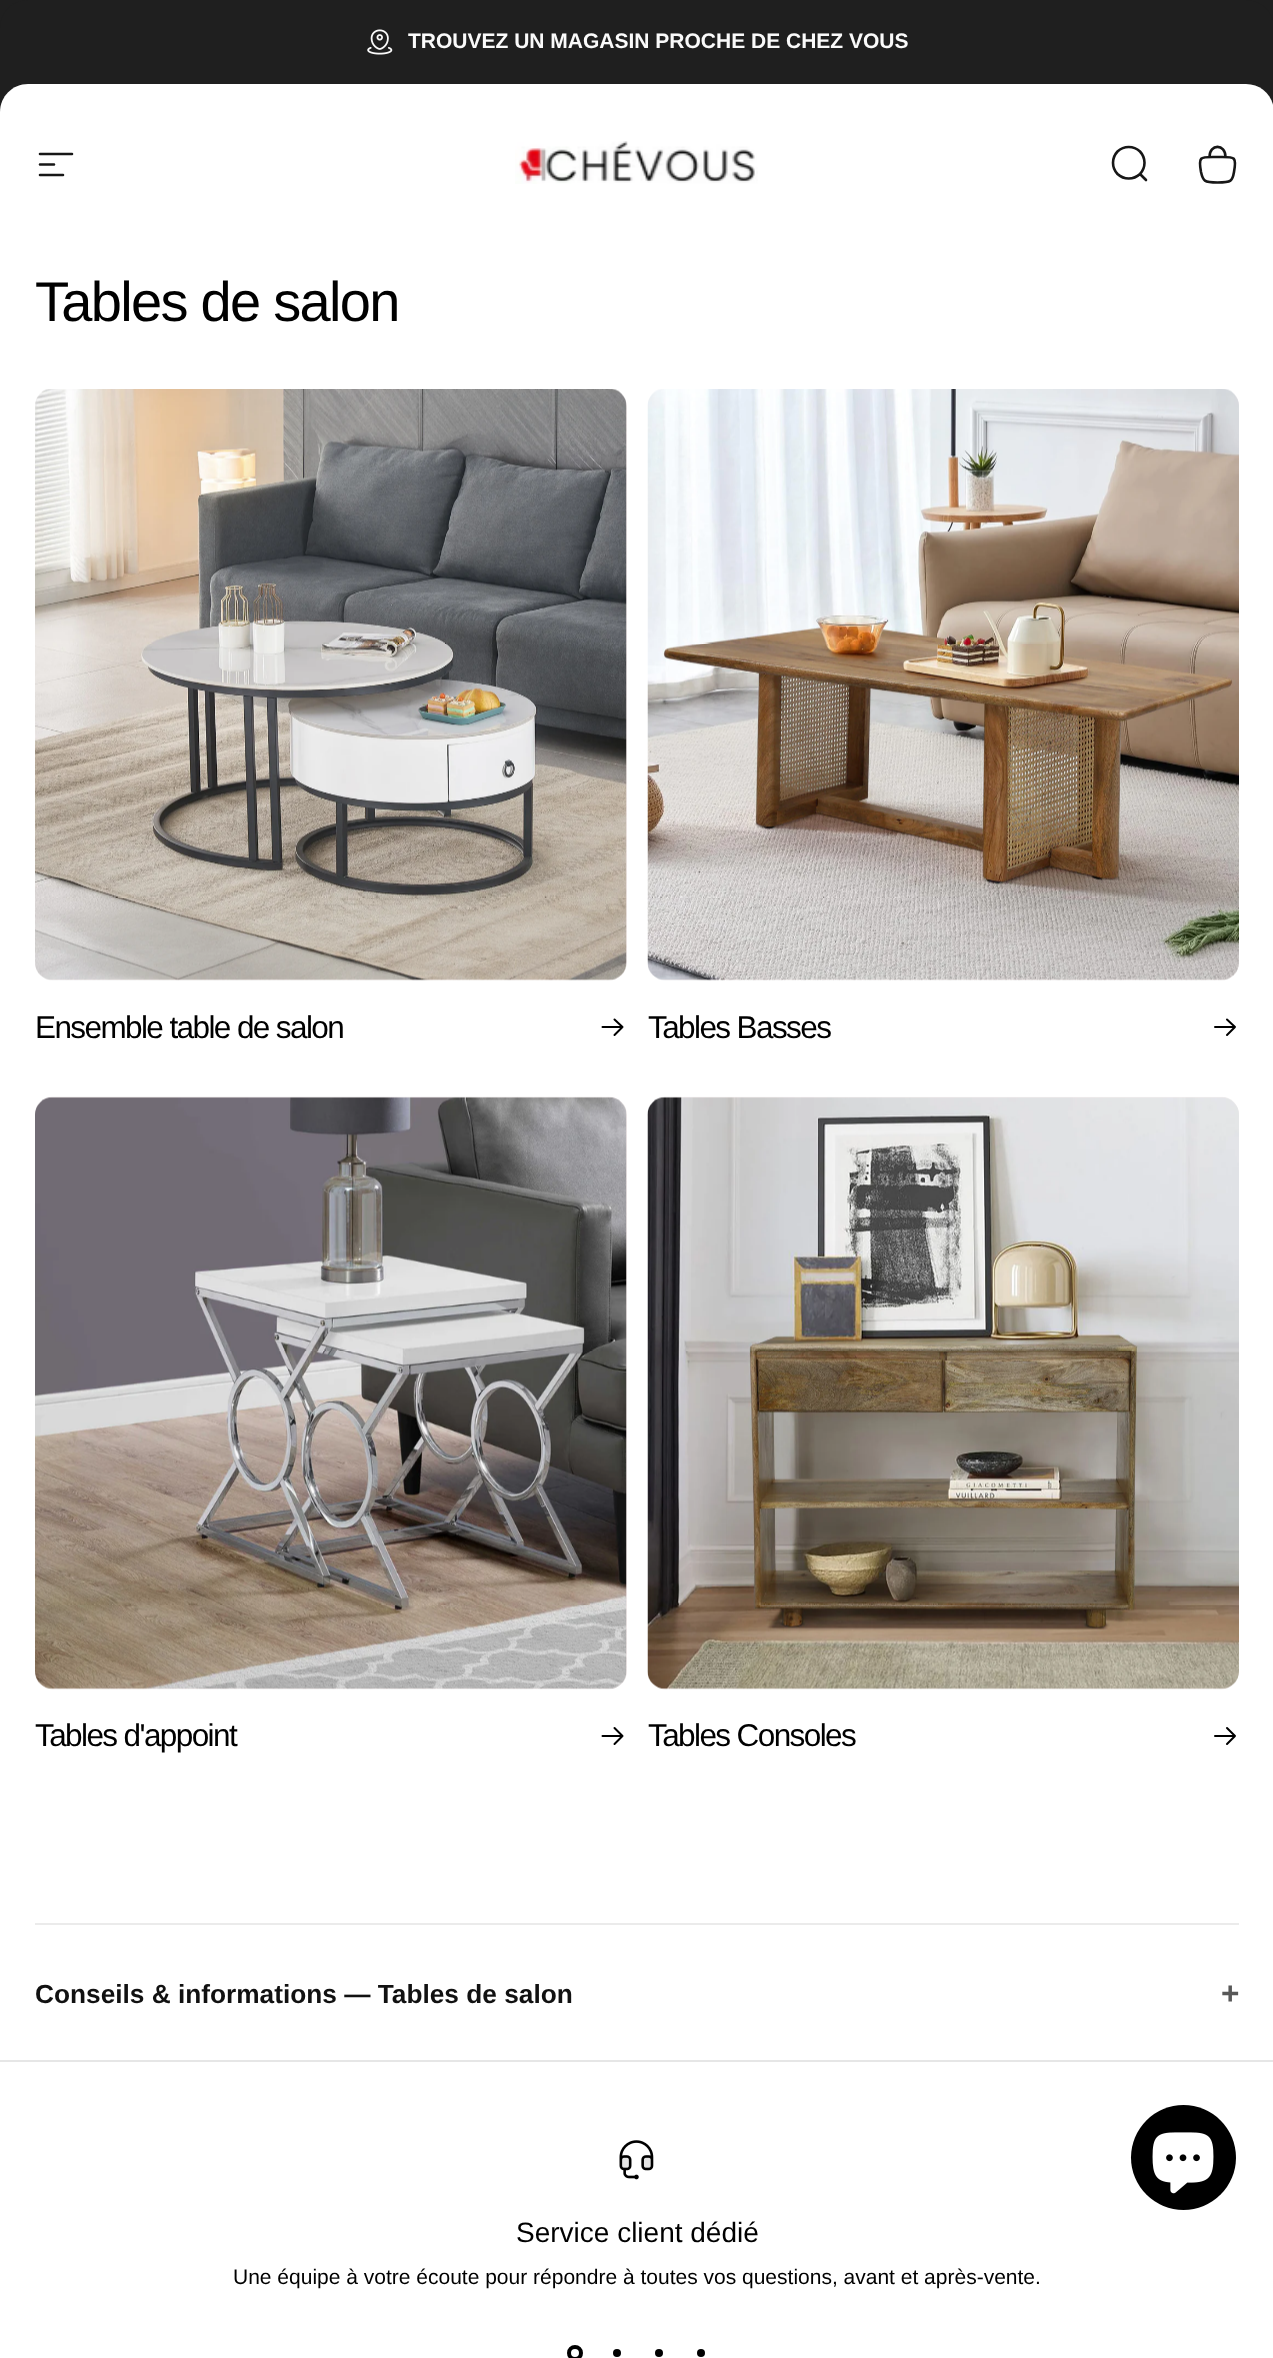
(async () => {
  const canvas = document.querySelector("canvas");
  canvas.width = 1273;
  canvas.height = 2358;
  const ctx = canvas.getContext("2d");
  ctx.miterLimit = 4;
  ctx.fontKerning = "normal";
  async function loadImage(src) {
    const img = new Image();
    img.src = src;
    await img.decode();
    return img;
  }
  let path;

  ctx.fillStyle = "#ffffff";
  ctx.fillRect(0, 0, 1273, 2358);
  ctx.fillStyle = "#1f1f1f";
  ctx.fillRect(0, 0, 1273, 28);
  path = new Path2D("M28 0H1246C1261.5 0 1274 12.5 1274 28V112H0V28C0 12.5 12.5 0 28 0Z");
  ctx.fill(path);
  ctx.drawImage(await loadImage("img/1.png"), 367, 29, 26, 26);
  ctx.fillStyle = "#ffffff";
  path = new Path2D("M28 84H1246C1261.5 84 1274 96.5 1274 112V245H0V112C0 96.5 12.5 84 28 84Z");
  ctx.fill(path);
  path = new Path2D("M40 154H72M40 164.5H54M40 175H63");
  ctx.strokeStyle = "#171717";
  ctx.lineWidth = 2.6;
  ctx.lineCap = "round";
  ctx.stroke(path);
  ctx.drawImage(await loadImage("img/2.png"), 515, 141, 243, 43);
  path = new Path2D("M1146 180L1140 174M1140 174C1146 167.5 1146 158 1140 151.5C1133.5 145.5 1124 145.5 1117.5 151.5C1111.5 158 1111.5 167.5 1117.5 174C1124 180 1133.5 180 1140 174Z");
  ctx.stroke(path);
  path = new Path2D("M1209.5 157C1209.5 143.5 1225.5 143.5 1225.5 157M1217.5 157C1200.5 157 1198 155.5 1201 172C1203 181 1204 182.5 1217.5 182.5C1231.5 182.5 1232.5 181 1234 172C1237 155.5 1234.5 157 1217.5 157Z");
  ctx.lineCap = "butt";
  ctx.stroke(path);
  ctx.fillStyle = "#f4eded";
  ctx.beginPath();
  ctx.roundRect(35, 389, 592, 591, 18);
  ctx.fill();
  ctx.drawImage(await loadImage("img/3.png"), 35, 389, 592, 592);
  path = new Path2D("M602.5 1027H622.5M622.5 1027L614.5 1019.5M622.5 1027L614.5 1035");
  ctx.strokeStyle = "#000000";
  ctx.lineWidth = 2;
  ctx.lineCap = "round";
  ctx.lineJoin = "round";
  ctx.stroke(path);
  ctx.beginPath();
  ctx.roundRect(648, 389, 591, 591, 18);
  ctx.fill();
  ctx.drawImage(await loadImage("img/4.png"), 647, 389, 592, 592);
  path = new Path2D("M1215 1027H1235M1235 1027L1227 1019.5M1235 1027L1227 1035");
  ctx.stroke(path);
  ctx.beginPath();
  ctx.roundRect(35, 1097, 592, 592, 18);
  ctx.fill();
  ctx.drawImage(await loadImage("img/5.png"), 35, 1096, 592, 594);
  path = new Path2D("M602.5 1736H622.5M622.5 1736L614.5 1728M622.5 1736L614.5 1744");
  ctx.stroke(path);
  ctx.beginPath();
  ctx.roundRect(648, 1097, 591, 592, 18);
  ctx.fill();
  ctx.drawImage(await loadImage("img/6.png"), 647, 1096, 592, 594);
  path = new Path2D("M1215 1736H1235M1235 1736L1227 1728M1235 1736L1227 1744");
  ctx.stroke(path);
  ctx.fillStyle = "#ebebeb";
  ctx.fillRect(35, 1923, 1204, 2);
  ctx.fillStyle = "#e6e6e6";
  ctx.fillRect(0, 2060, 1273, 2);
  ctx.drawImage(await loadImage("img/7.png"), 619, 2140, 35, 40);
  ctx.beginPath();
  ctx.arc(575, 2353, 6, 0, Math.PI * 2);
  ctx.lineWidth = 4;
  ctx.stroke();
  ctx.fillStyle = "#000000";
  ctx.beginPath();
  ctx.arc(617, 2353, 4, 0, Math.PI * 2);
  ctx.fill();
  ctx.beginPath();
  ctx.arc(659, 2353, 4, 0, Math.PI * 2);
  ctx.fill();
  ctx.beginPath();
  ctx.arc(701, 2353, 4, 0, Math.PI * 2);
  ctx.fill();
  ctx.beginPath();
  ctx.arc(1183.5, 2157.5, 52.5, 0, Math.PI * 2);
  ctx.fill();
  ctx.drawImage(await loadImage("img/8.png"), 1152, 2132, 62, 62);
  ctx.font = "bold 21px Liberation Sans";
  ctx.fillStyle = "#fafafa";
  ctx.fillText("TROUVEZ UN MAGASIN PROCHE DE CHEZ VOUS", 408, 48);
  ctx.letterSpacing = "-1.7px";
  ctx.font = "56px Liberation Sans";
  ctx.fillStyle = "#000000";
  ctx.fillText("Tables de salon", 35, 321);
  ctx.letterSpacing = "-1.6px";
  ctx.font = "31.5px Liberation Sans";
  for (const [text, x, y] of [
    ["Ensemble table de salon", 35, 1038],
    ["Tables Basses", 648, 1038],
    ["Tables d'appoint", 35, 1746],
    ["Tables Consoles", 648, 1746],
  ]) {
    ctx.fillText(text, x, y);
  }
  ctx.letterSpacing = "0px";
  ctx.font = "bold 26.25px Liberation Sans";
  ctx.fillStyle = "#111111";
  ctx.fillText("Conseils & informations — Tables de salon", 35, 2003);
  ctx.font = "bold 31.5px Liberation Sans";
  ctx.fillStyle = "#585858";
  ctx.fillText("+", 1221, 2004);
  ctx.font = "28px Liberation Sans";
  ctx.fillStyle = "#000000";
  ctx.fillText("Service client dédié", 516, 2242);
  ctx.font = "21px Liberation Sans";
  ctx.fillText("Une équipe à votre écoute pour répondre à toutes vos questions, avant et après-vente.", 233, 2284);
})();
